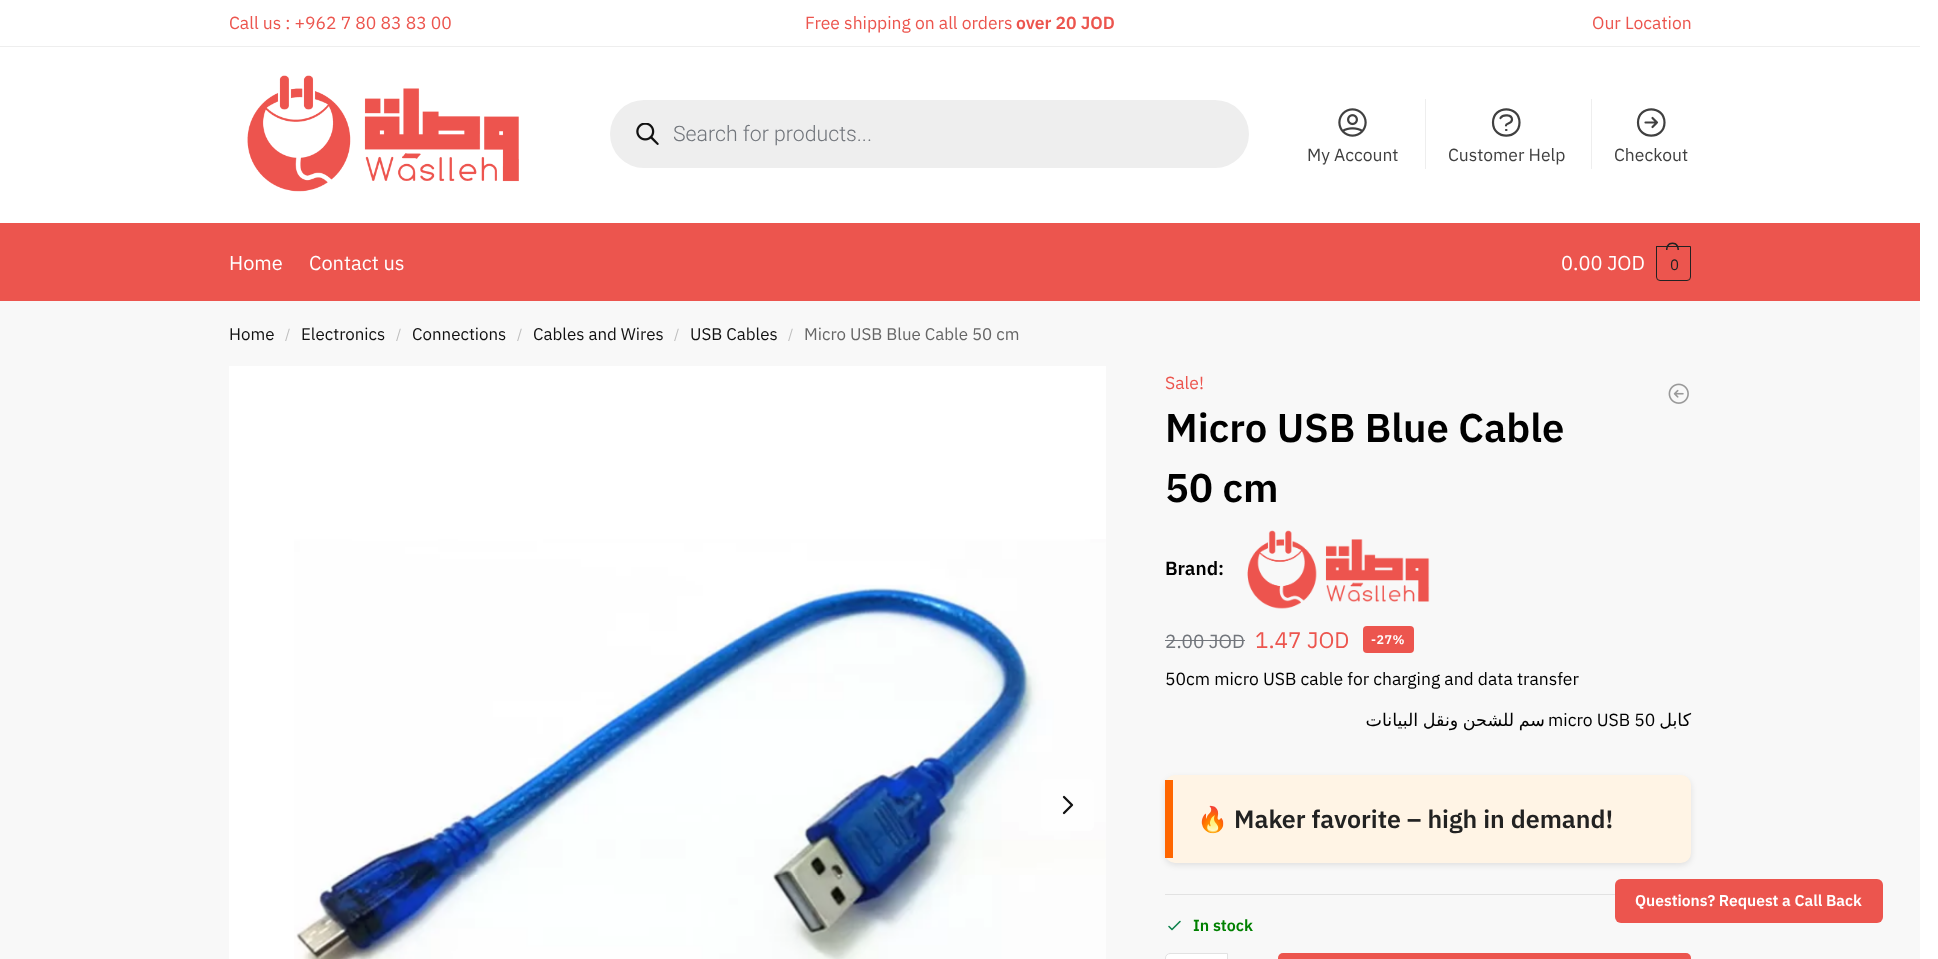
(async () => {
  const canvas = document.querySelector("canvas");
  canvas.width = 1938;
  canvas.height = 959;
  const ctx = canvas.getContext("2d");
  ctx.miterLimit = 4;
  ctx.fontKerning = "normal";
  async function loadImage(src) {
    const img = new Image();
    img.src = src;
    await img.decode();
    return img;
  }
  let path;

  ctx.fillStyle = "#ffffff";
  ctx.fillRect(0, 0, 1938, 959);
  ctx.fillStyle = "#eeeeee";
  ctx.fillRect(0, 46, 1920, 1);
  ctx.drawImage(await loadImage("img/1.png"), 247, 75, 272, 117);
  ctx.beginPath();
  ctx.roundRect(610, 100, 639, 68, 34);
  ctx.fill();
  ctx.drawImage(await loadImage("img/2.png"), 636, 123, 23, 22);
  ctx.drawImage(await loadImage("img/3.png"), 1338, 108, 29, 29);
  ctx.fillRect(1425, 99, 1, 70);
  path = new Path2D("M1500.5 118C1503 114 1512 114.5 1512 119.5C1512 124 1506 123 1506 125.5M1506 130H1506.5M1519.5 122.5C1519.5 140 1493 140 1493 122.5C1493 105 1519.5 105 1519.5 122.5Z");
  ctx.strokeStyle = "#404040";
  ctx.lineWidth = 2.2;
  ctx.lineCap = "round";
  ctx.lineJoin = "round";
  ctx.stroke(path);
  ctx.fillRect(1591, 99, 1, 70);
  path = new Path2D("M1652.5 118L1657 122.5M1657 122.5L1652.5 127M1657 122.5H1645.5M1664.5 122.5C1664.5 140 1638 140 1638 122.5C1638 105 1664.5 105 1664.5 122.5Z");
  ctx.stroke(path);
  ctx.fillStyle = "#ec554e";
  ctx.fillRect(0, 223, 1920, 78);
  ctx.beginPath();
  ctx.roundRect(1656.5, 246.5, 34, 34, [0, 0, 3.5, 3.5]);
  ctx.strokeStyle = "#222222";
  ctx.lineWidth = 1;
  ctx.lineJoin = "miter";
  ctx.stroke();
  ctx.fillStyle = "#222222";
  path = new Path2D("M1672.5 242.5C1677 242.5 1679 246 1679 250H1666C1666 246 1668 242.5 1672.5 242.5ZM1672.5 244C1676 244 1677.5 247 1677.5 250H1667.5C1667.5 247 1669 244 1672.5 244Z");
  ctx.fill(path, "evenodd");
  ctx.fillStyle = "#f8f8f8";
  ctx.fillRect(0, 301, 1920, 658);
  ctx.fillStyle = "#ffffff";
  ctx.fillRect(229, 366, 877, 593);
  ctx.drawImage(await loadImage("img/4.png"), 294, 539, 812, 420);
  ctx.fillStyle = "#fefefe";
  ctx.beginPath();
  ctx.roundRect(1041, 779, 53, 52, 5);
  ctx.fill();
  path = new Path2D("M1064 813L1072 805L1064 797");
  ctx.strokeStyle = "#111111";
  ctx.lineWidth = 2.3;
  ctx.lineJoin = "round";
  ctx.stroke(path);
  ctx.drawImage(await loadImage("img/5.png"), 1668, 383, 21, 21);
  ctx.drawImage(await loadImage("img/6.png"), 1247, 530, 183, 79);
  ctx.fillStyle = "#72767c";
  ctx.fillRect(1165, 640, 80, 1);
  ctx.fillStyle = "#ec554e";
  ctx.beginPath();
  ctx.roundRect(1363, 626, 51, 27, 4);
  ctx.fill();
  ctx.fillStyle = "rgba(0, 0, 0, 0.1)";
  ctx.filter = "blur(3px)";
  ctx.beginPath();
  ctx.roundRect(1165, 778, 526, 87, 10);
  ctx.fill();
  ctx.filter = "none";
  ctx.fillStyle = "#fff4e5";
  ctx.beginPath();
  ctx.roundRect(1165, 775, 526, 88, 10);
  ctx.fill();
  ctx.fillStyle = "#ff6600";
  ctx.fillRect(1165, 780, 8, 78);
  ctx.fillStyle = "#ec554e";
  ctx.beginPath();
  ctx.roundRect(1615, 879, 268, 44, 6);
  ctx.fill();
  ctx.fillStyle = "#e2e2e2";
  ctx.fillRect(1165, 894, 450, 1);
  path = new Path2D("M1169 926.5L1172 929.5L1180 921.5");
  ctx.strokeStyle = "#0f834d";
  ctx.lineWidth = 1.6;
  ctx.stroke(path);
  ctx.fillStyle = "#ffffff";
  path = new Path2D("M1170 953.5H1227.5V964.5H1170C1167.5 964.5 1165.5 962.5 1165.5 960V958C1165.5 955.5 1167.5 953.5 1170 953.5Z");
  ctx.fill(path);
  ctx.strokeStyle = "#e2e2e2";
  ctx.lineWidth = 1;
  ctx.lineJoin = "miter";
  ctx.stroke(path);
  ctx.fillStyle = "#ec554e";
  ctx.beginPath();
  ctx.roundRect(1278, 953, 413, 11, 5);
  ctx.fill();
  ctx.font = "17.5px IBM Plex Sans";
  ctx.fillText("Call us : +962 7 80 83 83 00", 229, 29);
  ctx.fillText("Free shipping on all orders", 805, 29);
  ctx.font = "600 17.5px IBM Plex Sans";
  ctx.fillText("over 20 JOD", 1016, 29);
  ctx.font = "17.5px IBM Plex Sans";
  ctx.fillText("Our Location", 1592, 29);
  ctx.font = "300 21.25px Roboto";
  ctx.fillStyle = "#72767c";
  ctx.fillText("Search for products...", 673, 141);
  ctx.font = "17.5px IBM Plex Sans";
  ctx.fillStyle = "#404040";
  for (const [text, x, y] of [
    ["My Account", 1307, 161],
    ["Customer Help", 1448, 161],
    ["Checkout", 1614, 161],
  ]) {
    ctx.fillText(text, x, y);
  }
  ctx.font = "20px IBM Plex Sans";
  ctx.fillStyle = "#ffffff";
  for (const [text, x, y] of [
    ["Home", 229, 270],
    ["Contact us", 309, 270],
    ["0.00 JOD", 1561, 270],
  ]) {
    ctx.fillText(text, x, y);
  }
  ctx.letterSpacing = "-1px";
  ctx.font = "15px IBM Plex Sans";
  ctx.fillStyle = "#222222";
  ctx.fillText("0", 1670, 270);
  ctx.letterSpacing = "0px";
  ctx.font = "16.9px IBM Plex Sans";
  ctx.fillStyle = "#111111";
  ctx.fillText("Home", 229, 340);
  ctx.font = "14px IBM Plex Sans";
  ctx.fillStyle = "#bebebe";
  ctx.fillText("/", 285, 339);
  ctx.font = "16.9px IBM Plex Sans";
  ctx.fillStyle = "#111111";
  ctx.fillText("Electronics", 301, 340);
  ctx.font = "14px IBM Plex Sans";
  ctx.fillStyle = "#bebebe";
  ctx.fillText("/", 396, 339);
  ctx.font = "16.9px IBM Plex Sans";
  ctx.fillStyle = "#111111";
  ctx.fillText("Connections", 412, 340);
  ctx.font = "14px IBM Plex Sans";
  ctx.fillStyle = "#bebebe";
  ctx.fillText("/", 517, 339);
  ctx.font = "16.9px IBM Plex Sans";
  ctx.fillStyle = "#111111";
  ctx.fillText("Cables and Wires", 533, 340);
  ctx.font = "14px IBM Plex Sans";
  ctx.fillStyle = "#bebebe";
  ctx.fillText("/", 674, 339);
  ctx.font = "16.9px IBM Plex Sans";
  ctx.fillStyle = "#111111";
  ctx.fillText("USB Cables", 690, 340);
  ctx.font = "14px IBM Plex Sans";
  ctx.fillStyle = "#bebebe";
  ctx.fillText("/", 788, 339);
  ctx.font = "16.9px IBM Plex Sans";
  ctx.fillStyle = "#666666";
  ctx.fillText("Micro USB Blue Cable 50 cm", 804, 340);
  ctx.font = "17.5px IBM Plex Sans";
  ctx.fillStyle = "#ec554e";
  ctx.fillText("Sale!", 1165, 389);
  ctx.font = "600 40px IBM Plex Sans";
  ctx.fillStyle = "#000000";
  ctx.fillText("Micro USB Blue Cable", 1165, 442);
  ctx.fillText("50 cm", 1165, 502);
  ctx.font = "600 19px IBM Plex Sans";
  ctx.fillText("Brand:", 1165, 575);
  ctx.font = "19px IBM Plex Sans";
  ctx.fillStyle = "#72767c";
  ctx.fillText("2.00 JOD", 1165, 648);
  ctx.font = "22.5px IBM Plex Sans";
  ctx.fillStyle = "#ec554e";
  ctx.fillText("1.47 JOD", 1255, 648);
  ctx.letterSpacing = "0.5px";
  ctx.font = "600 12.5px IBM Plex Sans";
  ctx.fillStyle = "#ffffff";
  ctx.fillText("-27%", 1371, 644);
  ctx.letterSpacing = "0px";
  ctx.font = "17.5px IBM Plex Sans";
  ctx.fillStyle = "#000000";
  ctx.fillText("50cm micro USB cable for charging and data transfer", 1165, 685);
  ctx.wordSpacing = "-1px";
  ctx.direction = "rtl";
  ctx.font = "17.5px DejaVu Sans";
  ctx.fillText("سم للشحن ونقل البيانات", 1545, 726);
  ctx.wordSpacing = "0px";
  ctx.direction = "ltr";
  ctx.font = "17.5px IBM Plex Sans";
  ctx.fillText("micro USB 50", 1548, 726);
  ctx.direction = "rtl";
  ctx.font = "17.5px DejaVu Sans";
  ctx.fillText("كابل", 1691, 726);
  ctx.direction = "ltr";
  ctx.font = "bold 25px Noto Color Emoji";
  ctx.fillStyle = "#222222";
  ctx.fillText("🔥", 1197, 828);
  ctx.font = "600 25px IBM Plex Sans";
  ctx.fillText("Maker favorite – high in demand!", 1234, 828);
  ctx.font = "600 15.6px IBM Plex Sans";
  ctx.fillStyle = "#ffffff";
  ctx.fillText("Questions? Request a Call Back", 1635, 906);
  ctx.font = "600 16px IBM Plex Sans";
  ctx.fillStyle = "#008000";
  ctx.fillText("In stock", 1193, 931);
})();
